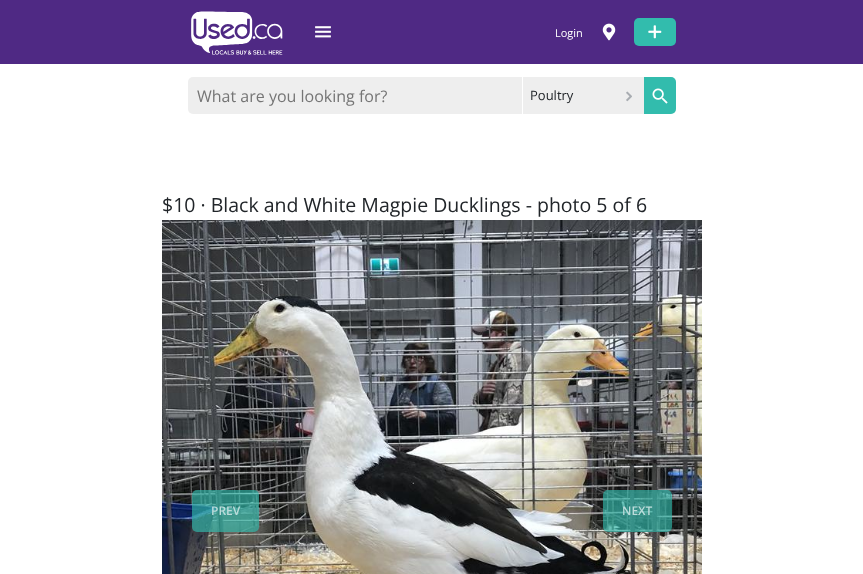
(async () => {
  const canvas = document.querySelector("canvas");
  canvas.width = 863;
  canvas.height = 574;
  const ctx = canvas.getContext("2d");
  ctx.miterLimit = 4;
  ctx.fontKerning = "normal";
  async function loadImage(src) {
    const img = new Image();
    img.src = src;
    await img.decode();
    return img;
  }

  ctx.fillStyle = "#ffffff";
  ctx.fillRect(0, 0, 863, 574);
  ctx.fillStyle = "#4f2984";
  ctx.fillRect(0, 0, 863, 64);
  ctx.drawImage(await loadImage("img/1.png"), 191, 11, 92, 44);
  ctx.drawImage(await loadImage("img/2.png"), 315, 26, 16, 12);
  ctx.drawImage(await loadImage("img/3.png"), 602, 23, 14, 18);
  ctx.fillStyle = "#32bcad";
  ctx.beginPath();
  ctx.roundRect(634, 18, 42, 28, 5);
  ctx.fill();
  ctx.drawImage(await loadImage("img/4.png"), 648, 25, 14, 14);
  ctx.fillStyle = "#eeeeee";
  ctx.beginPath();
  ctx.roundRect(188, 77, 488, 37, 5);
  ctx.fill();
  ctx.fillStyle = "#ffffff";
  ctx.fillRect(522, 77, 1, 37);
  ctx.drawImage(await loadImage("img/5.png"), 626, 91, 6, 11);
  ctx.fillStyle = "#32bcad";
  ctx.beginPath();
  ctx.roundRect(644, 77, 32, 37, [0, 5, 5, 0]);
  ctx.fill();
  ctx.drawImage(await loadImage("img/6.png"), 652, 88, 16, 16);
  ctx.drawImage(await loadImage("img/7.png"), 162, 220, 540, 354);
  ctx.fillStyle = "rgba(50, 188, 173, 0.65)";
  ctx.beginPath();
  ctx.roundRect(192, 490, 67, 42, 5);
  ctx.fill();
  ctx.beginPath();
  ctx.roundRect(603, 490, 69, 42, 5);
  ctx.fill();
  ctx.font = "11px Open Sans";
  ctx.fillStyle = "#ffffff";
  ctx.fillText("Login", 555, 37);
  ctx.font = "16px Open Sans";
  ctx.fillStyle = "#757575";
  ctx.fillText("What are you looking for?", 197, 102);
  ctx.font = "13px Open Sans";
  ctx.fillStyle = "#212529";
  ctx.fillText("Poultry", 530, 100);
  ctx.font = "19.5px Open Sans";
  ctx.fillText("$10 · Black and White Magpie Ducklings - photo 5 of 6", 162, 212);
  ctx.font = "600 12px Open Sans";
  ctx.fillStyle = "#bcdcda";
  ctx.fillText("PREV", 211, 515);
  ctx.fillText("NEXT", 622, 515);
})();
